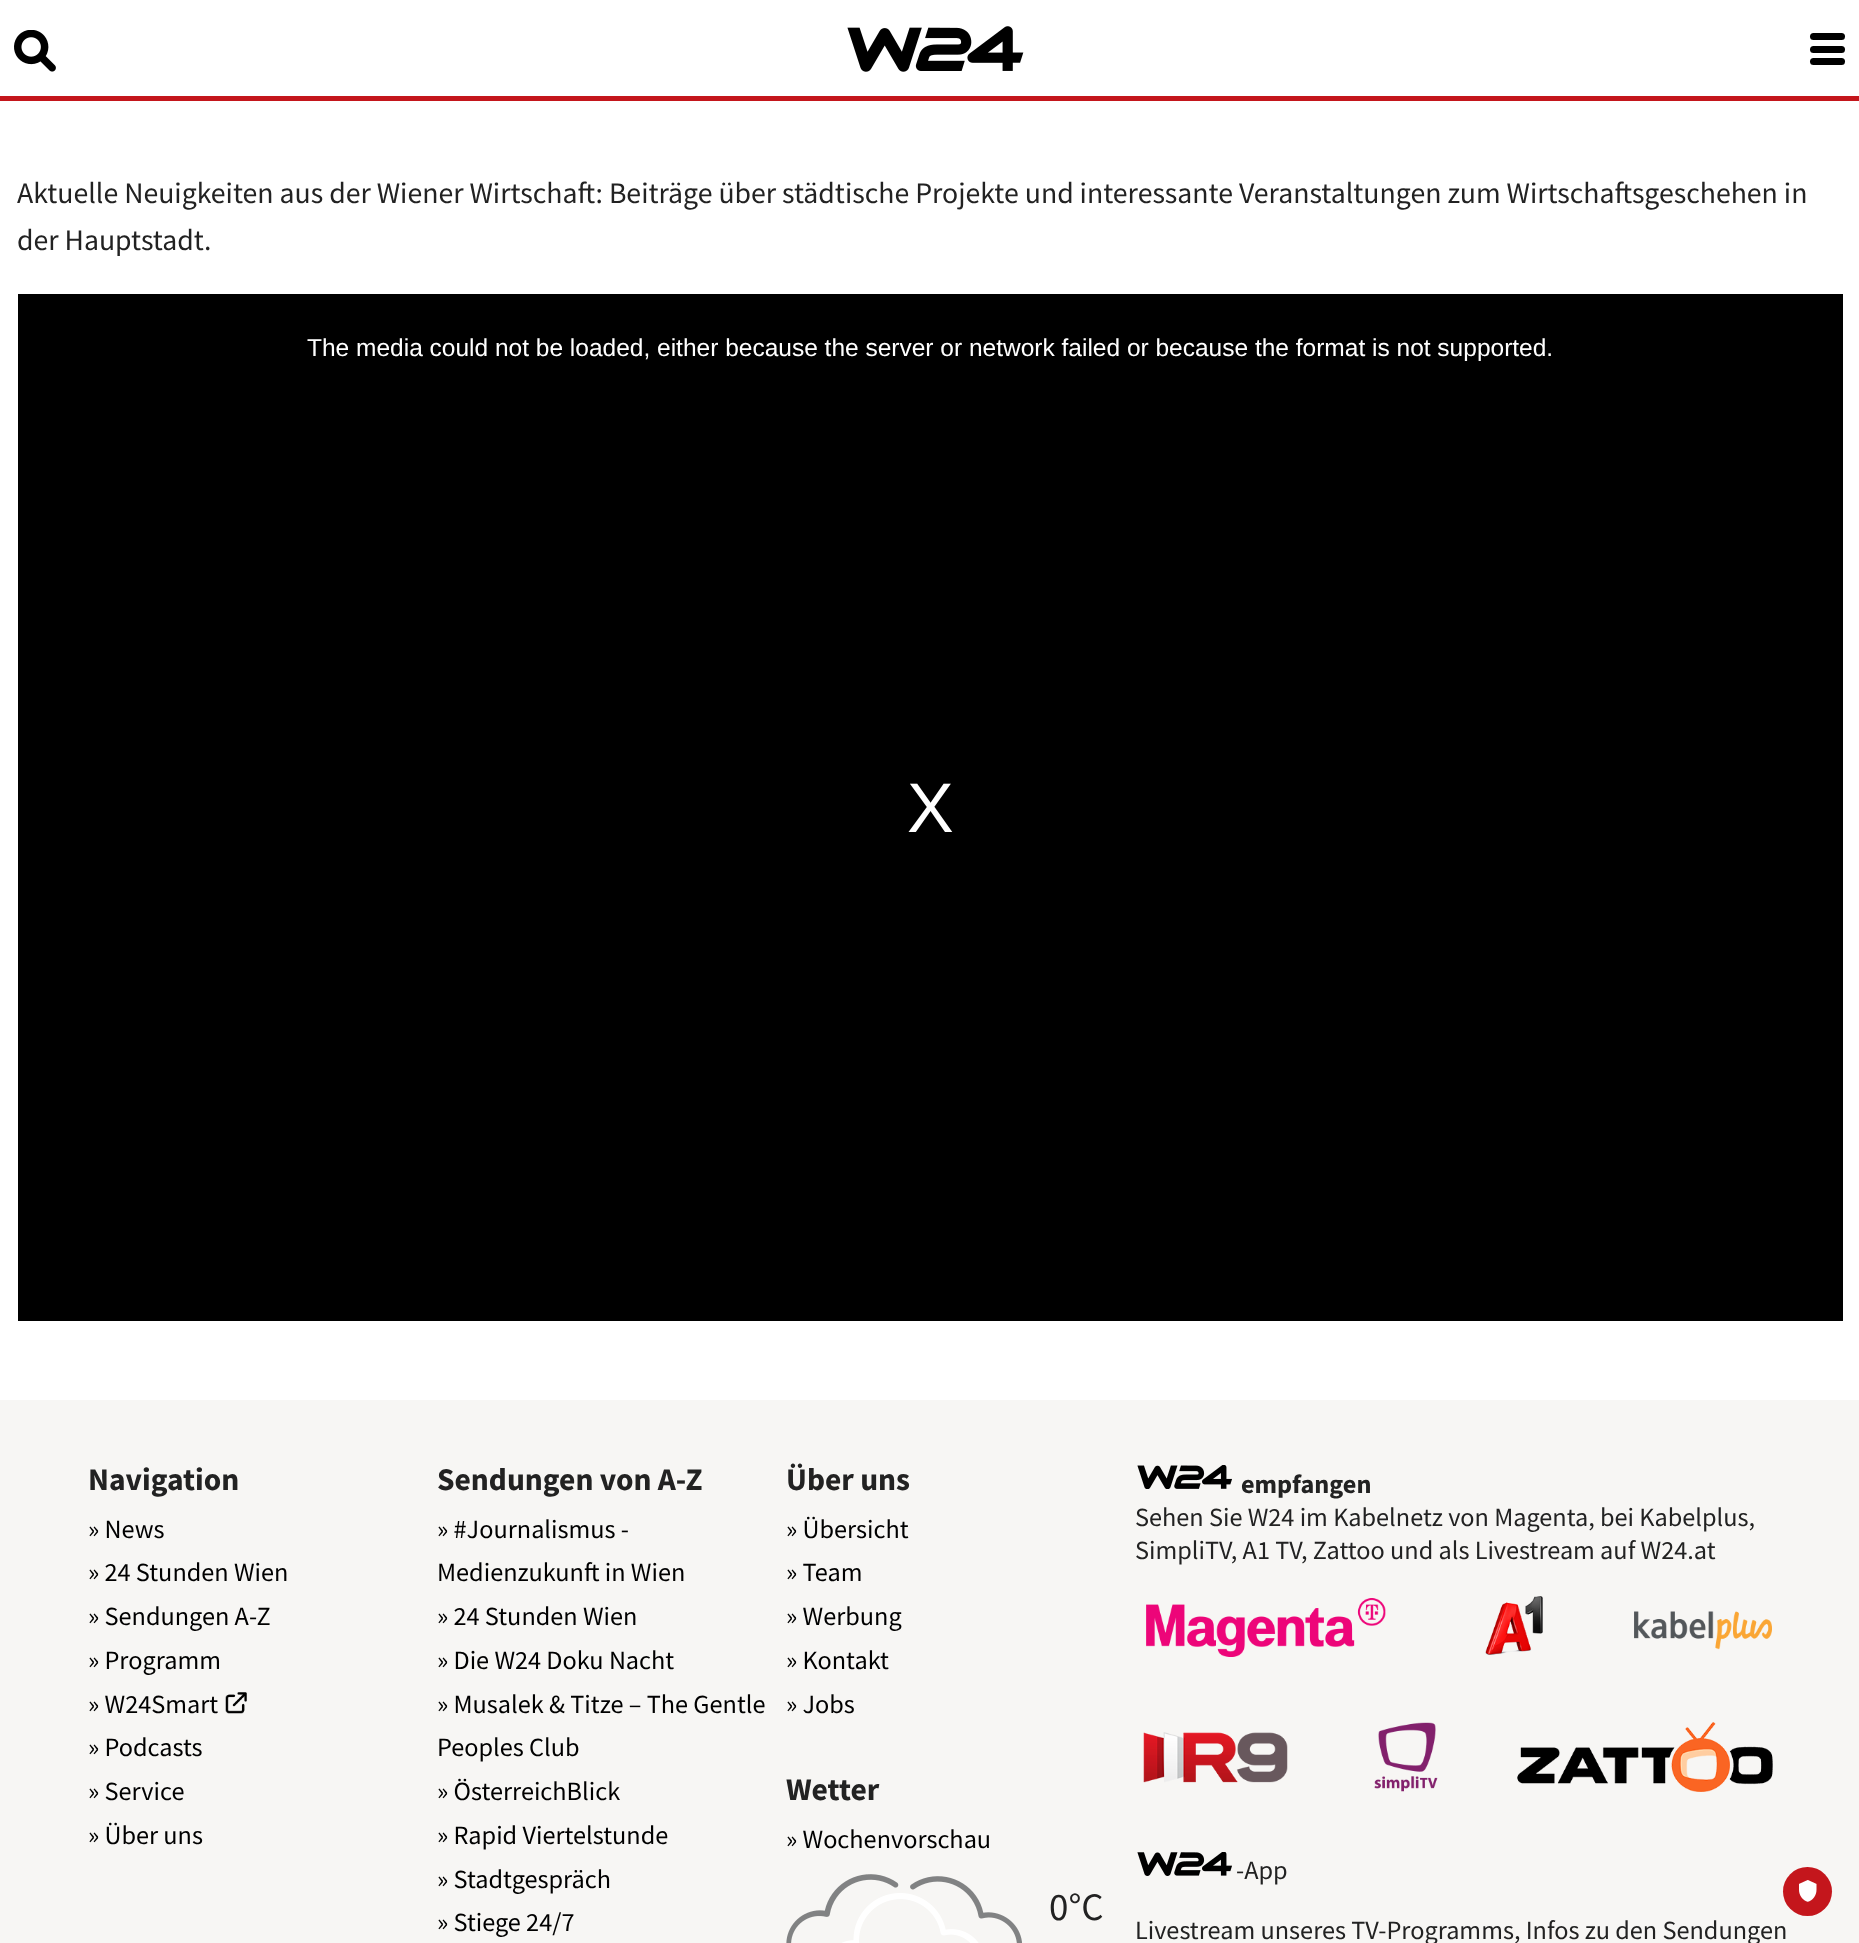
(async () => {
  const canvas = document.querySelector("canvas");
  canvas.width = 1859;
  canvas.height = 1943;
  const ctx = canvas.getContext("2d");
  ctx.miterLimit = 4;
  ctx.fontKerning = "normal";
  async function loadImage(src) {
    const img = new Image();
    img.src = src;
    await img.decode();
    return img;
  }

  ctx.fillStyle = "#ffffff";
  ctx.fillRect(0, 0, 1859, 1943);
  ctx.fillStyle = "#c4161c";
  ctx.fillRect(0, 96, 1859, 5);
  ctx.drawImage(await loadImage("img/1.png"), 14, 30, 42, 42);
  ctx.drawImage(await loadImage("img/2.png"), 847, 26, 177, 46);
  ctx.fillStyle = "#000000";
  ctx.beginPath();
  ctx.roundRect(1810, 33, 35, 7, 3.5);
  ctx.fill();
  ctx.beginPath();
  ctx.roundRect(1810, 46, 35, 7, 3.5);
  ctx.fill();
  ctx.beginPath();
  ctx.roundRect(1810, 58, 35, 7, 3.5);
  ctx.fill();
  ctx.fillRect(18, 294, 1825, 1027);
  ctx.fillStyle = "#f7f6f4";
  ctx.fillRect(0, 1400, 1859, 543);
  ctx.drawImage(await loadImage("img/3.png"), 225, 1692, 22, 22);
  ctx.drawImage(await loadImage("img/4.png"), 786, 1874, 236, 69);
  ctx.drawImage(await loadImage("img/5.png"), 1137, 1465, 95, 24);
  ctx.drawImage(await loadImage("img/6.png"), 1146, 1598, 240, 59);
  ctx.drawImage(await loadImage("img/7.png"), 1485, 1596, 58, 59);
  ctx.drawImage(await loadImage("img/8.png"), 1634, 1611, 138, 39);
  ctx.drawImage(await loadImage("img/9.png"), 1143, 1732, 145, 51);
  ctx.drawImage(await loadImage("img/10.png"), 1374, 1722, 64, 70);
  ctx.drawImage(await loadImage("img/11.png"), 1517, 1722, 256, 70);
  ctx.drawImage(await loadImage("img/12.png"), 1137, 1852, 95, 24);
  ctx.fillStyle = "#c4161c";
  ctx.beginPath();
  ctx.arc(1807.5, 1891.5, 24.5, 0, Math.PI * 2);
  ctx.fill();
  ctx.drawImage(await loadImage("img/13.png"), 1799, 1880, 18, 22);
  ctx.font = "29.75px Source Sans Pro";
  ctx.fillStyle = "#222222";
  ctx.fillText("Aktuelle Neuigkeiten aus der Wiener Wirtschaft: Beiträge über städtische Projekte und interessante Veranstaltungen zum Wirtschaftsgeschehen in", 17, 203);
  ctx.fillText("der Hauptstadt.", 17, 250);
  ctx.font = "24.5px Liberation Sans";
  ctx.fillStyle = "#ffffff";
  ctx.fillText("The media could not be loaded, either because the server or network failed or because the format is not supported.", 307, 356);
  ctx.font = "70px Liberation Sans";
  ctx.fillText("X", 907, 832);
  ctx.font = "bold 31.5px Source Sans Pro";
  ctx.fillStyle = "#222222";
  ctx.fillText("Navigation", 88, 1490);
  ctx.font = "26.25px Source Sans Pro";
  ctx.fillStyle = "#000000";
  for (const [text, x, y] of [
    ["» News", 88, 1538],
    ["» 24 Stunden Wien", 88, 1581],
    ["» Sendungen A-Z", 88, 1625],
    ["» Programm", 88, 1669],
    ["» W24Smart", 88, 1713],
    ["» Podcasts", 88, 1756],
    ["» Service", 88, 1800],
    ["» Über uns", 88, 1844],
  ]) {
    ctx.fillText(text, x, y);
  }
  ctx.font = "bold 31.5px Source Sans Pro";
  ctx.fillStyle = "#222222";
  ctx.fillText("Sendungen von A-Z", 437, 1490);
  ctx.font = "26.25px Source Sans Pro";
  ctx.fillStyle = "#000000";
  for (const [text, x, y] of [
    ["» #Journalismus -", 437, 1538],
    ["Medienzukunft in Wien", 437, 1581],
    ["» 24 Stunden Wien", 437, 1625],
    ["» Die W24 Doku Nacht", 437, 1669],
    ["» Musalek & Titze – The Gentle", 437, 1713],
    ["Peoples Club", 437, 1756],
    ["» ÖsterreichBlick", 437, 1800],
    ["» Rapid Viertelstunde", 437, 1844],
    ["» Stadtgespräch", 437, 1888],
    ["» Stiege 24/7", 437, 1931],
  ]) {
    ctx.fillText(text, x, y);
  }
  ctx.font = "bold 31.5px Source Sans Pro";
  ctx.fillStyle = "#222222";
  ctx.fillText("Über uns", 786, 1490);
  ctx.font = "26.25px Source Sans Pro";
  ctx.fillStyle = "#000000";
  for (const [text, x, y] of [
    ["» Übersicht", 786, 1538],
    ["» Team", 786, 1581],
    ["» Werbung", 786, 1625],
    ["» Kontakt", 786, 1669],
    ["» Jobs", 786, 1713],
  ]) {
    ctx.fillText(text, x, y);
  }
  ctx.font = "bold 31.5px Source Sans Pro";
  ctx.fillStyle = "#222222";
  ctx.fillText("Wetter", 786, 1800);
  ctx.font = "26.25px Source Sans Pro";
  ctx.fillStyle = "#000000";
  ctx.fillText("» Wochenvorschau", 786, 1848);
  ctx.font = "39px Source Sans Pro";
  ctx.fillStyle = "#222222";
  ctx.fillText("0°C", 1049, 1920);
  ctx.font = "bold 26.25px Source Sans Pro";
  ctx.fillText("empfangen", 1241, 1493);
  ctx.font = "26.25px Source Sans Pro";
  for (const [text, x, y] of [
    ["Sehen Sie W24 im Kabelnetz von Magenta, bei Kabelplus,", 1135, 1526],
    ["SimpliTV, A1 TV, Zattoo und als Livestream auf W24.at", 1135, 1559],
    ["-App", 1236, 1879],
    ["Livestream unseres TV-Programms, Infos zu den Sendungen", 1135, 1939],
  ]) {
    ctx.fillText(text, x, y);
  }
})();
